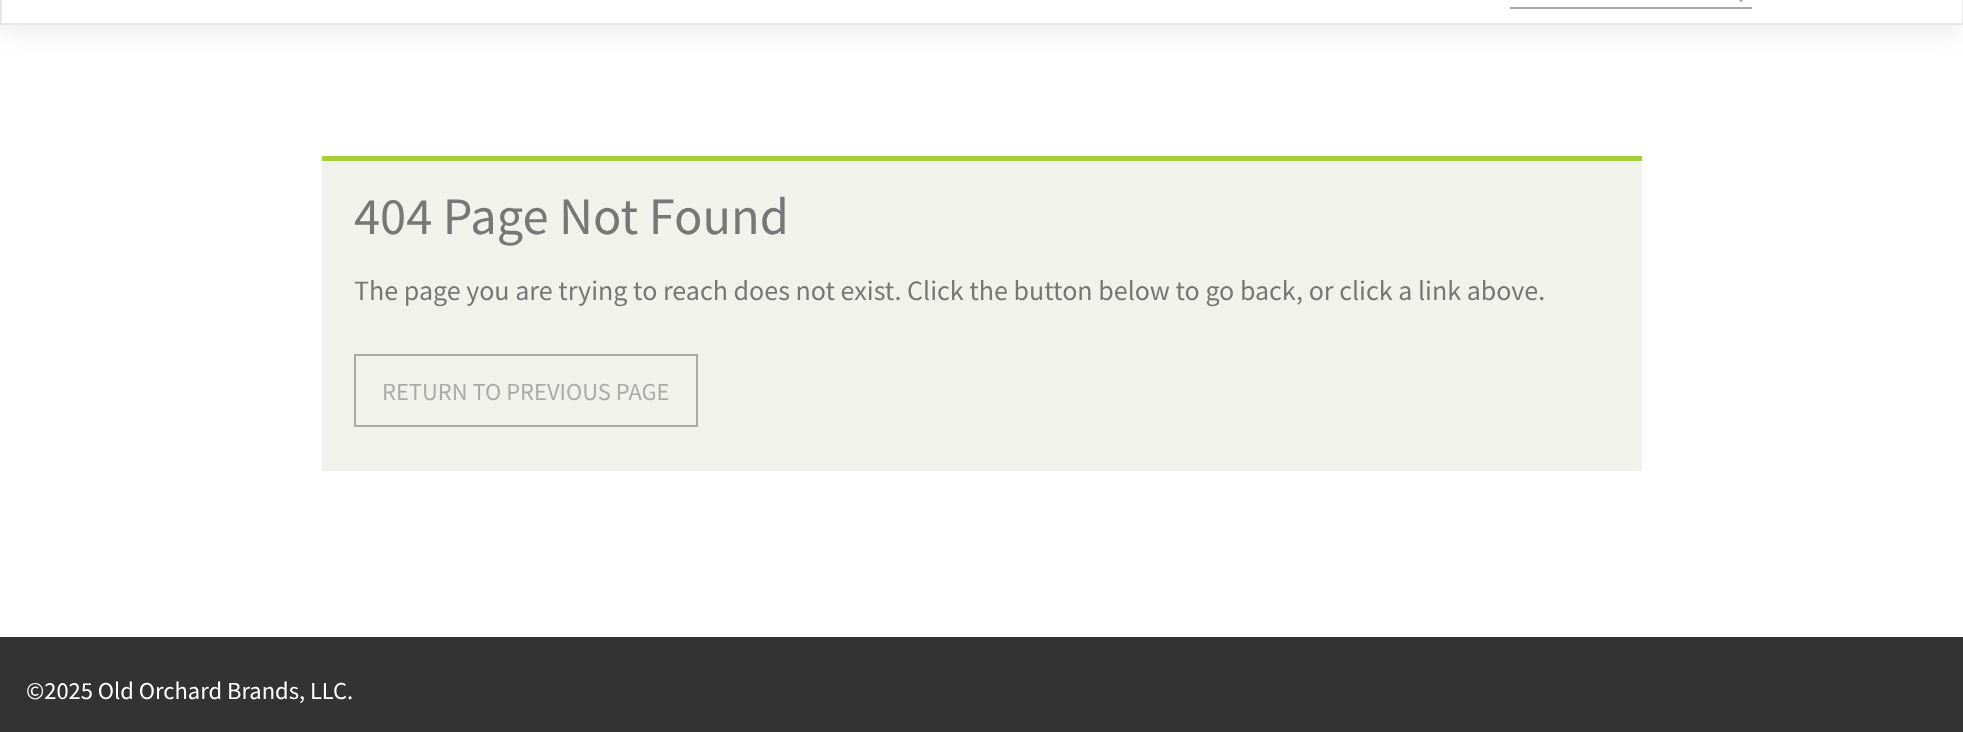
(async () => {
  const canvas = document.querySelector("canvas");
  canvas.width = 1963;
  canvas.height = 732;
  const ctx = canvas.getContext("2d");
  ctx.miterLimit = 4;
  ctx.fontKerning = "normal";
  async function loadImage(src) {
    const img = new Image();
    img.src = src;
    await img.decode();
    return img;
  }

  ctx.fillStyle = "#ffffff";
  ctx.fillRect(0, 0, 1963, 732);
  ctx.fillStyle = "rgba(0, 0, 0, 0.1)";
  ctx.filter = "blur(13px)";
  ctx.beginPath();
  ctx.rect(0, -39, 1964, 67);
  ctx.fill();
  ctx.filter = "none";
  ctx.fillStyle = "#ffffff";
  ctx.beginPath();
  ctx.rect(1, -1, 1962, 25);
  ctx.fill();
  ctx.strokeStyle = "#e7e7e7";
  ctx.lineWidth = 2;
  ctx.stroke();
  ctx.fillStyle = "#aaaaaa";
  ctx.fillRect(1510, 7, 242, 2);
  ctx.drawImage(await loadImage("img/1.png"), 1739, 0, 4, 2);
  ctx.fillStyle = "#f2f2ed";
  ctx.fillRect(322, 161, 1320, 310);
  ctx.fillStyle = "#a6ce39";
  ctx.fillRect(322, 156, 1320, 5);
  ctx.strokeStyle = "#aaaaaa";
  ctx.strokeRect(355, 355, 342, 71);
  ctx.fillStyle = "#333333";
  ctx.fillRect(0, 637, 1963, 95);
  ctx.font = "52.5px Source Sans Pro";
  ctx.fillStyle = "#777777";
  ctx.fillText("404 Page Not Found", 354, 234);
  ctx.font = "28px Source Sans Pro";
  ctx.fillText("The page you are trying to reach does not exist. Click the button below to go back, or click a link above.", 354, 300);
  ctx.font = "24.5px Source Sans Pro";
  ctx.fillStyle = "#aaaaaa";
  ctx.fillText("RETURN TO PREVIOUS PAGE", 382, 400);
  ctx.fillStyle = "#ffffff";
  ctx.fillText("©2025 Old Orchard Brands, LLC.", 26, 699);
})();
